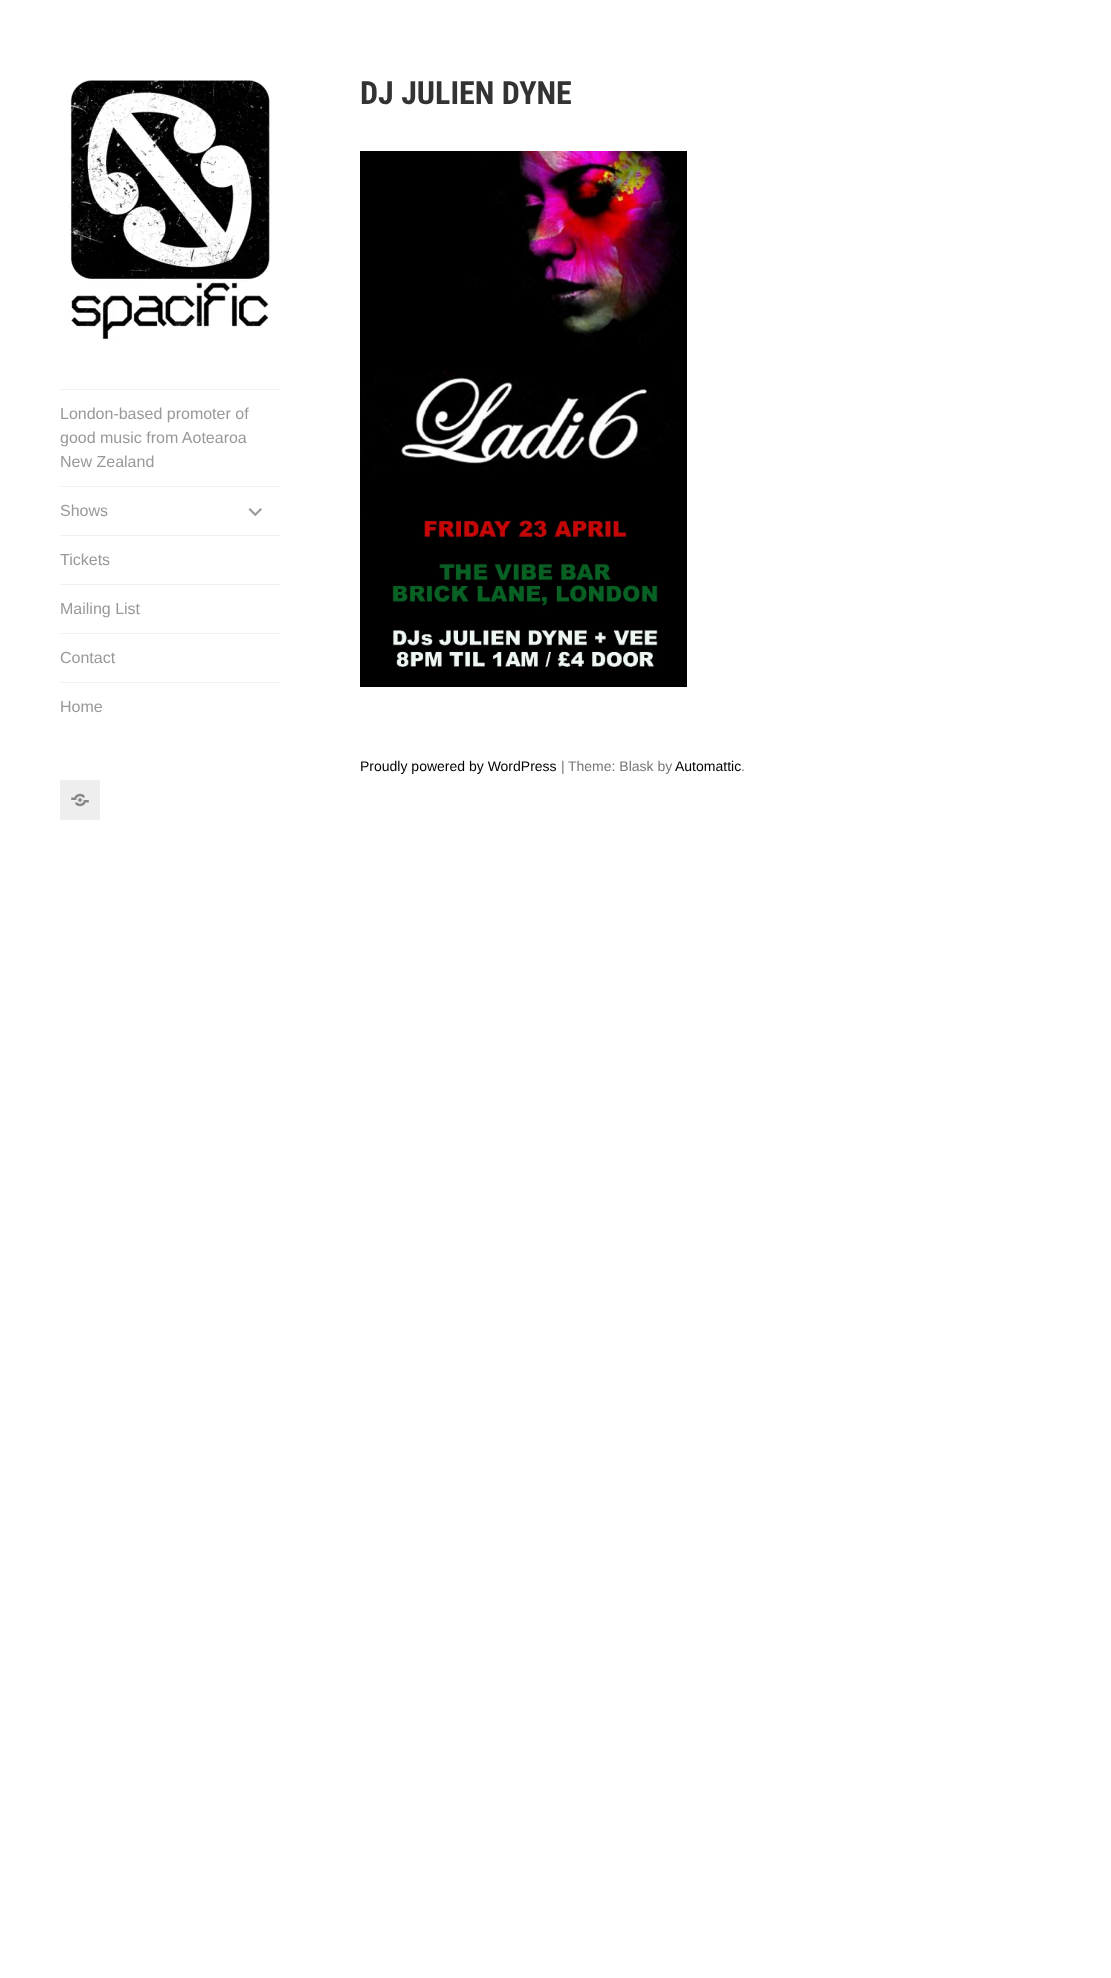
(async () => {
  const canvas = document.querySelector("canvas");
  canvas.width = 1111;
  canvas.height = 1978;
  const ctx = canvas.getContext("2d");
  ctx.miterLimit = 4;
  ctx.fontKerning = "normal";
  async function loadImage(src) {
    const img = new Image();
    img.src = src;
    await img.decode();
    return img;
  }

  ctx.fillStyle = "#ffffff";
  ctx.fillRect(0, 0, 1111, 1978);
  ctx.drawImage(await loadImage("img/1.png"), 68, 80, 204, 260);
  ctx.fillStyle = "#f0f0f0";
  ctx.fillRect(60, 389, 220, 1);
  ctx.fillRect(60, 486, 220, 1);
  ctx.drawImage(await loadImage("img/2.png"), 248, 508, 14, 9);
  for (const [x, y, w, h, color] of [
    [60, 535, 220, 1, "#f0f0f0"],
    [60, 584, 220, 1, "#f0f0f0"],
    [60, 633, 220, 1, "#f0f0f0"],
    [60, 682, 220, 1, "#f0f0f0"],
    [60, 780, 40, 40, "#eeeeee"],
  ]) {
    ctx.fillStyle = color;
    ctx.fillRect(x, y, w, h);
  }
  ctx.drawImage(await loadImage("img/3.png"), 71, 793, 18, 14);
  ctx.fillStyle = "#000000";
  ctx.fillRect(360, 151, 327, 536);
  ctx.drawImage(await loadImage("img/4.png"), 360, 151, 324, 516);
  ctx.font = "16px Arimo";
  ctx.fillStyle = "#999999";
  for (const [text, x, y] of [
    ["London-based promoter of", 60, 419],
    ["good music from Aotearoa", 60, 443],
    ["New Zealand", 60, 467],
    ["Shows", 60, 516],
    ["Tickets", 60, 565],
    ["Mailing List", 60, 614],
    ["Contact", 60, 663],
    ["Home", 60, 712],
  ]) {
    ctx.fillText(text, x, y);
  }
  ctx.font = "bold 32px Roboto Condensed";
  ctx.fillStyle = "#333333";
  ctx.fillText("DJ JULIEN DYNE", 360, 104);
  ctx.font = "14px Arimo";
  ctx.fillStyle = "#000000";
  ctx.fillText("Proudly powered by WordPress", 360, 771);
  ctx.fillStyle = "#777777";
  ctx.fillText("|", 561, 771);
  ctx.fillText("Theme: Blask by", 568, 771);
  ctx.fillStyle = "#000000";
  ctx.fillText("Automattic", 675, 771);
  ctx.fillStyle = "#777777";
  ctx.fillText(".", 741, 771);
})();
